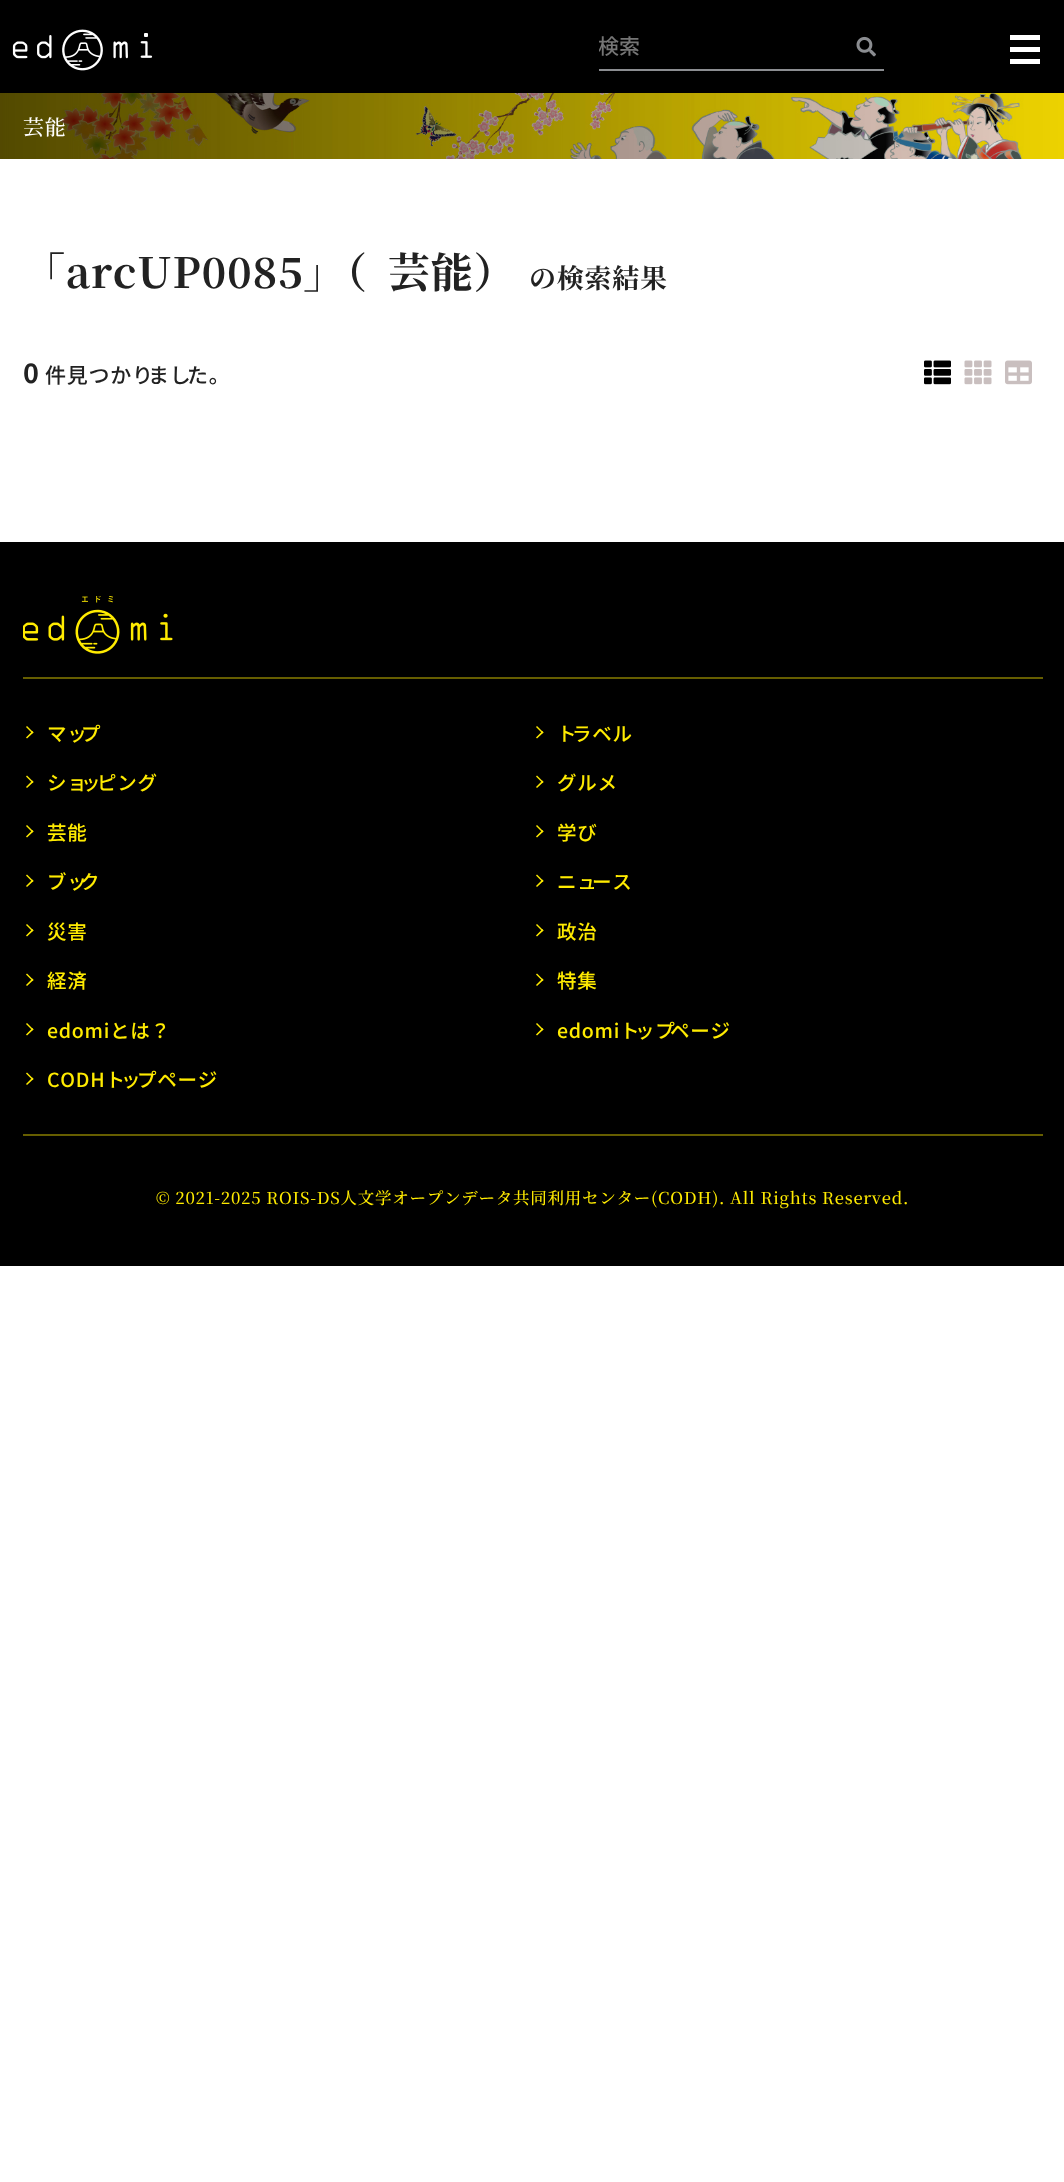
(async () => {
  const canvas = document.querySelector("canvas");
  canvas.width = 1064;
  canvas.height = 2182;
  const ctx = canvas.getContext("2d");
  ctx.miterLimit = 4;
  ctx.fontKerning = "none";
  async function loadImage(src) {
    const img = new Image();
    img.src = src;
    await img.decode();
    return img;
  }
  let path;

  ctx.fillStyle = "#ffffff";
  ctx.fillRect(0, 0, 1064, 2182);
  ctx.fillStyle = "#000000";
  ctx.fillRect(0, 0, 1064, 93);
  ctx.drawImage(await loadImage("img/1.png"), 12, 29, 141, 42);
  ctx.fillStyle = "#8b8d91";
  ctx.fillRect(599, 69, 285, 2);
  ctx.drawImage(await loadImage("img/2.png"), 856, 36, 20, 21);
  for (const [x, y, w, h, color] of [
    [1010, 35, 30, 5, "#ffffff"],
    [1010, 47, 30, 5, "#ffffff"],
    [1010, 59, 30, 5, "#ffffff"],
  ]) {
    ctx.fillStyle = color;
    ctx.fillRect(x, y, w, h);
  }
  ctx.drawImage(await loadImage("img/3.png"), 0, 93, 1064, 66);
  ctx.drawImage(await loadImage("img/4.png"), 924, 360, 27, 25);
  ctx.drawImage(await loadImage("img/5.png"), 964, 360, 28, 25);
  ctx.drawImage(await loadImage("img/6.png"), 1005, 360, 27, 25);
  ctx.fillStyle = "#000000";
  ctx.fillRect(0, 542, 1064, 724);
  ctx.drawImage(await loadImage("img/7.png"), 23, 596, 150, 58);
  ctx.fillStyle = "#665e00";
  ctx.fillRect(23, 677, 1020, 2);
  ctx.fillRect(23, 1134, 1020, 2);
  ctx.fillStyle = "#ffeb00";
  path = new Path2D("M27 726L33.5 732.5L32.5 733.5L26 727Z");
  ctx.fill(path);
  path = new Path2D("M32.5 731L33.5 732.5L27 738.5L26 737.5Z");
  ctx.fill(path);
  path = new Path2D("M537 726L543.5 732.5L542.5 733.5L536 727Z");
  ctx.fill(path);
  path = new Path2D("M542.5 731L543.5 732.5L537 738.5L536 737.5Z");
  ctx.fill(path);
  path = new Path2D("M27 775.5L33.5 782L32.5 783L26 776.5Z");
  ctx.fill(path);
  path = new Path2D("M32.5 780.5L33.5 782L27 788L26 787Z");
  ctx.fill(path);
  path = new Path2D("M537 775.5L543.5 782L542.5 783L536 776.5Z");
  ctx.fill(path);
  path = new Path2D("M542.5 780.5L543.5 782L537 788L536 787Z");
  ctx.fill(path);
  path = new Path2D("M27 825L33.5 831.5L32.5 832.5L26 826Z");
  ctx.fill(path);
  path = new Path2D("M32.5 830L33.5 831.5L27 837.5L26 836.5Z");
  ctx.fill(path);
  path = new Path2D("M537 825L543.5 831.5L542.5 832.5L536 826Z");
  ctx.fill(path);
  path = new Path2D("M542.5 830L543.5 831.5L537 837.5L536 836.5Z");
  ctx.fill(path);
  path = new Path2D("M27 874.5L33.5 881L32.5 882L26 875.5Z");
  ctx.fill(path);
  path = new Path2D("M32.5 879.5L33.5 881L27 887L26 886Z");
  ctx.fill(path);
  path = new Path2D("M537 874.5L543.5 881L542.5 882L536 875.5Z");
  ctx.fill(path);
  path = new Path2D("M542.5 879.5L543.5 881L537 887L536 886Z");
  ctx.fill(path);
  path = new Path2D("M27 924L33.5 930.5L32.5 931.5L26 925Z");
  ctx.fill(path);
  path = new Path2D("M32.5 929L33.5 930.5L27 936.5L26 935.5Z");
  ctx.fill(path);
  path = new Path2D("M537 924L543.5 930.5L542.5 931.5L536 925Z");
  ctx.fill(path);
  path = new Path2D("M542.5 929L543.5 930.5L537 936.5L536 935.5Z");
  ctx.fill(path);
  path = new Path2D("M27 973.5L33.5 980L32.5 981L26 974.5Z");
  ctx.fill(path);
  path = new Path2D("M32.5 978.5L33.5 980L27 986L26 985Z");
  ctx.fill(path);
  path = new Path2D("M537 973.5L543.5 980L542.5 981L536 974.5Z");
  ctx.fill(path);
  path = new Path2D("M542.5 978.5L543.5 980L537 986L536 985Z");
  ctx.fill(path);
  path = new Path2D("M27 1023L33.5 1029.5L32.5 1030.5L26 1024Z");
  ctx.fill(path);
  path = new Path2D("M32.5 1028L33.5 1029.5L27 1035.5L26 1034.5Z");
  ctx.fill(path);
  path = new Path2D("M537 1023L543.5 1029.5L542.5 1030.5L536 1024Z");
  ctx.fill(path);
  path = new Path2D("M542.5 1028L543.5 1029.5L537 1035.5L536 1034.5Z");
  ctx.fill(path);
  path = new Path2D("M27 1072.5L33.5 1079L32.5 1080L26 1073.5Z");
  ctx.fill(path);
  path = new Path2D("M32.5 1077.5L33.5 1079L27 1085L26 1084Z");
  ctx.fill(path);
  ctx.save();
  ctx.beginPath();
  ctx.roundRect(599, 23, 279, 46, 8);
  ctx.clip();
  ctx.font = "500 21px Noto Sans JP";
  ctx.fillStyle = "#757575";
  ctx.fillText("検索", 598, 54);
  ctx.restore();
  ctx.letterSpacing = "0.75px";
  ctx.font = "500 21px Noto Serif JP";
  ctx.fillStyle = "#ffffff";
  ctx.fillText("芸能", 23, 135);
  ctx.font = "bold 42px Noto Serif JP";
  ctx.fillStyle = "#222222";
  ctx.fillText("「arcUP0085」（", 23, 288);
  ctx.fillText("芸能）", 388, 288);
  ctx.font = "bold 27px Noto Serif JP";
  ctx.fillText("の検索結果", 529, 288);
  ctx.font = "bold 27px Noto Sans JP";
  ctx.fillText("0", 23, 383);
  ctx.font = "500 21px Noto Sans JP";
  ctx.fillText("件見つかり", 45, 383);
  ctx.fillText("まし", 148, 383);
  ctx.fillText("た。", 187, 383);
  ctx.font = "500 19.5px Noto Sans JP";
  ctx.fillStyle = "#ffeb00";
  for (const [text, x, y] of [
    ["マッ", 47, 741],
    ["プ", 81, 741],
    ["ト", 557, 741],
    ["ラベル", 572, 741],
    ["ショ", 47, 790],
    ["ッ", 81, 790],
    ["ピング", 97, 790],
    ["グルメ", 557, 790],
    ["芸能", 47, 840],
    ["学び", 557, 840],
    ["ブッ", 47, 889],
    ["ク", 80, 889],
    ["ニュ", 557, 889],
    ["ース", 592, 889],
    ["災害", 47, 939],
    ["政治", 557, 939],
    ["経済", 47, 988],
    ["特集", 557, 988],
    ["edomiとは？", 47, 1038],
    ["edomiト", 557, 1038],
    ["ップ", 635, 1038],
    ["ページ", 670, 1038],
    ["CODHト", 47, 1087],
    ["ッ", 121, 1087],
    ["プページ", 137, 1087],
  ]) {
    ctx.fillText(text, x, y);
  }
  ctx.font = "500 16.5px Noto Serif JP";
  ctx.fillText("© 2021-2025 ROIS-DS人文学オープンデータ共同利用センター(CODH).", 156, 1204);
  ctx.fillText("All Rights Reserved.", 730, 1204);
})();
